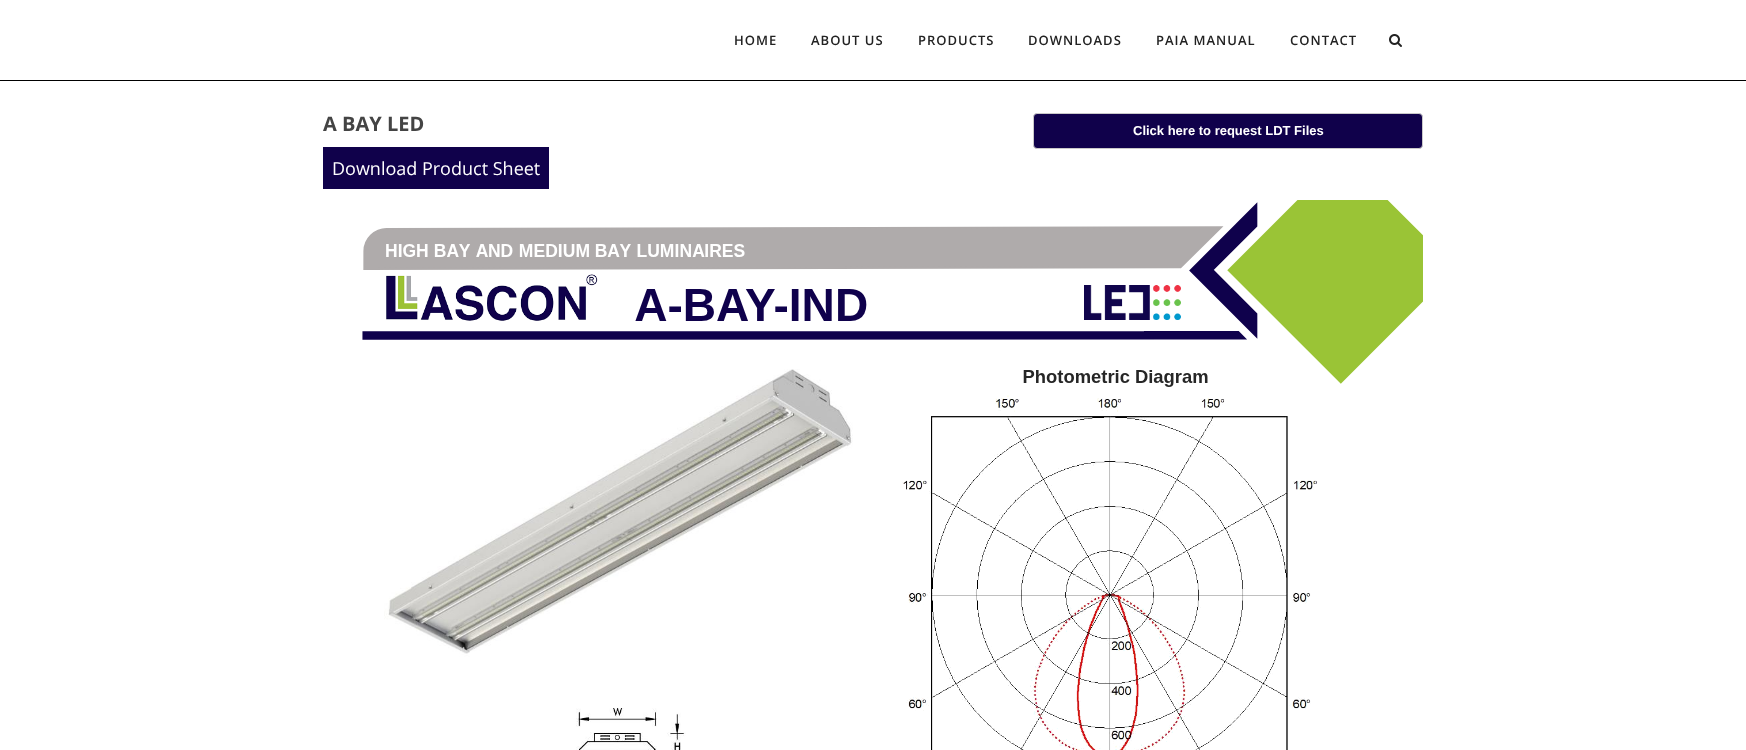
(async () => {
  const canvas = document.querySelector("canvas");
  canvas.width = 1746;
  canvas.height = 750;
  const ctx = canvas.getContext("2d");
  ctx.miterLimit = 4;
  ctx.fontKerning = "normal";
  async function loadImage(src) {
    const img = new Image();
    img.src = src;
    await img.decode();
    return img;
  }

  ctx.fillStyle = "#ffffff";
  ctx.fillRect(0, 0, 1746, 750);
  ctx.fillStyle = "#000000";
  ctx.fillRect(0, 80, 1746, 1);
  ctx.drawImage(await loadImage("img/1.png"), 1389, 34, 13, 13);
  ctx.fillStyle = "#10014b";
  ctx.beginPath();
  ctx.roundRect(1033.5, 113.5, 389, 35, 3.5);
  ctx.fill();
  ctx.strokeStyle = "#cac9c9";
  ctx.stroke();
  ctx.fillRect(323, 147, 226, 42);
  ctx.drawImage(await loadImage("img/2.png"), 362, 200, 1061, 550);
  ctx.letterSpacing = "1px";
  ctx.font = "600 13px Open Sans";
  ctx.fillStyle = "#222222";
  for (const [text, x, y] of [
    ["HOME", 734, 45],
    ["ABOUT US", 811, 45],
    ["PRODUCTS", 918, 45],
    ["DOWNLOADS", 1028, 45],
    ["PAIA MANUAL", 1156, 45],
    ["CONTACT", 1290, 45],
  ]) {
    ctx.fillText(text, x, y);
  }
  ctx.letterSpacing = "0px";
  ctx.font = "bold 20px Open Sans";
  ctx.fillStyle = "#444444";
  ctx.fillText("A BAY LED", 323, 131);
  ctx.font = "bold 13px Liberation Sans";
  ctx.fillStyle = "#ffffff";
  ctx.fillText("Click here to request LDT Files", 1133, 135);
  ctx.font = "18px Open Sans";
  ctx.fillText("Download Product Sheet", 332, 175);
})();
